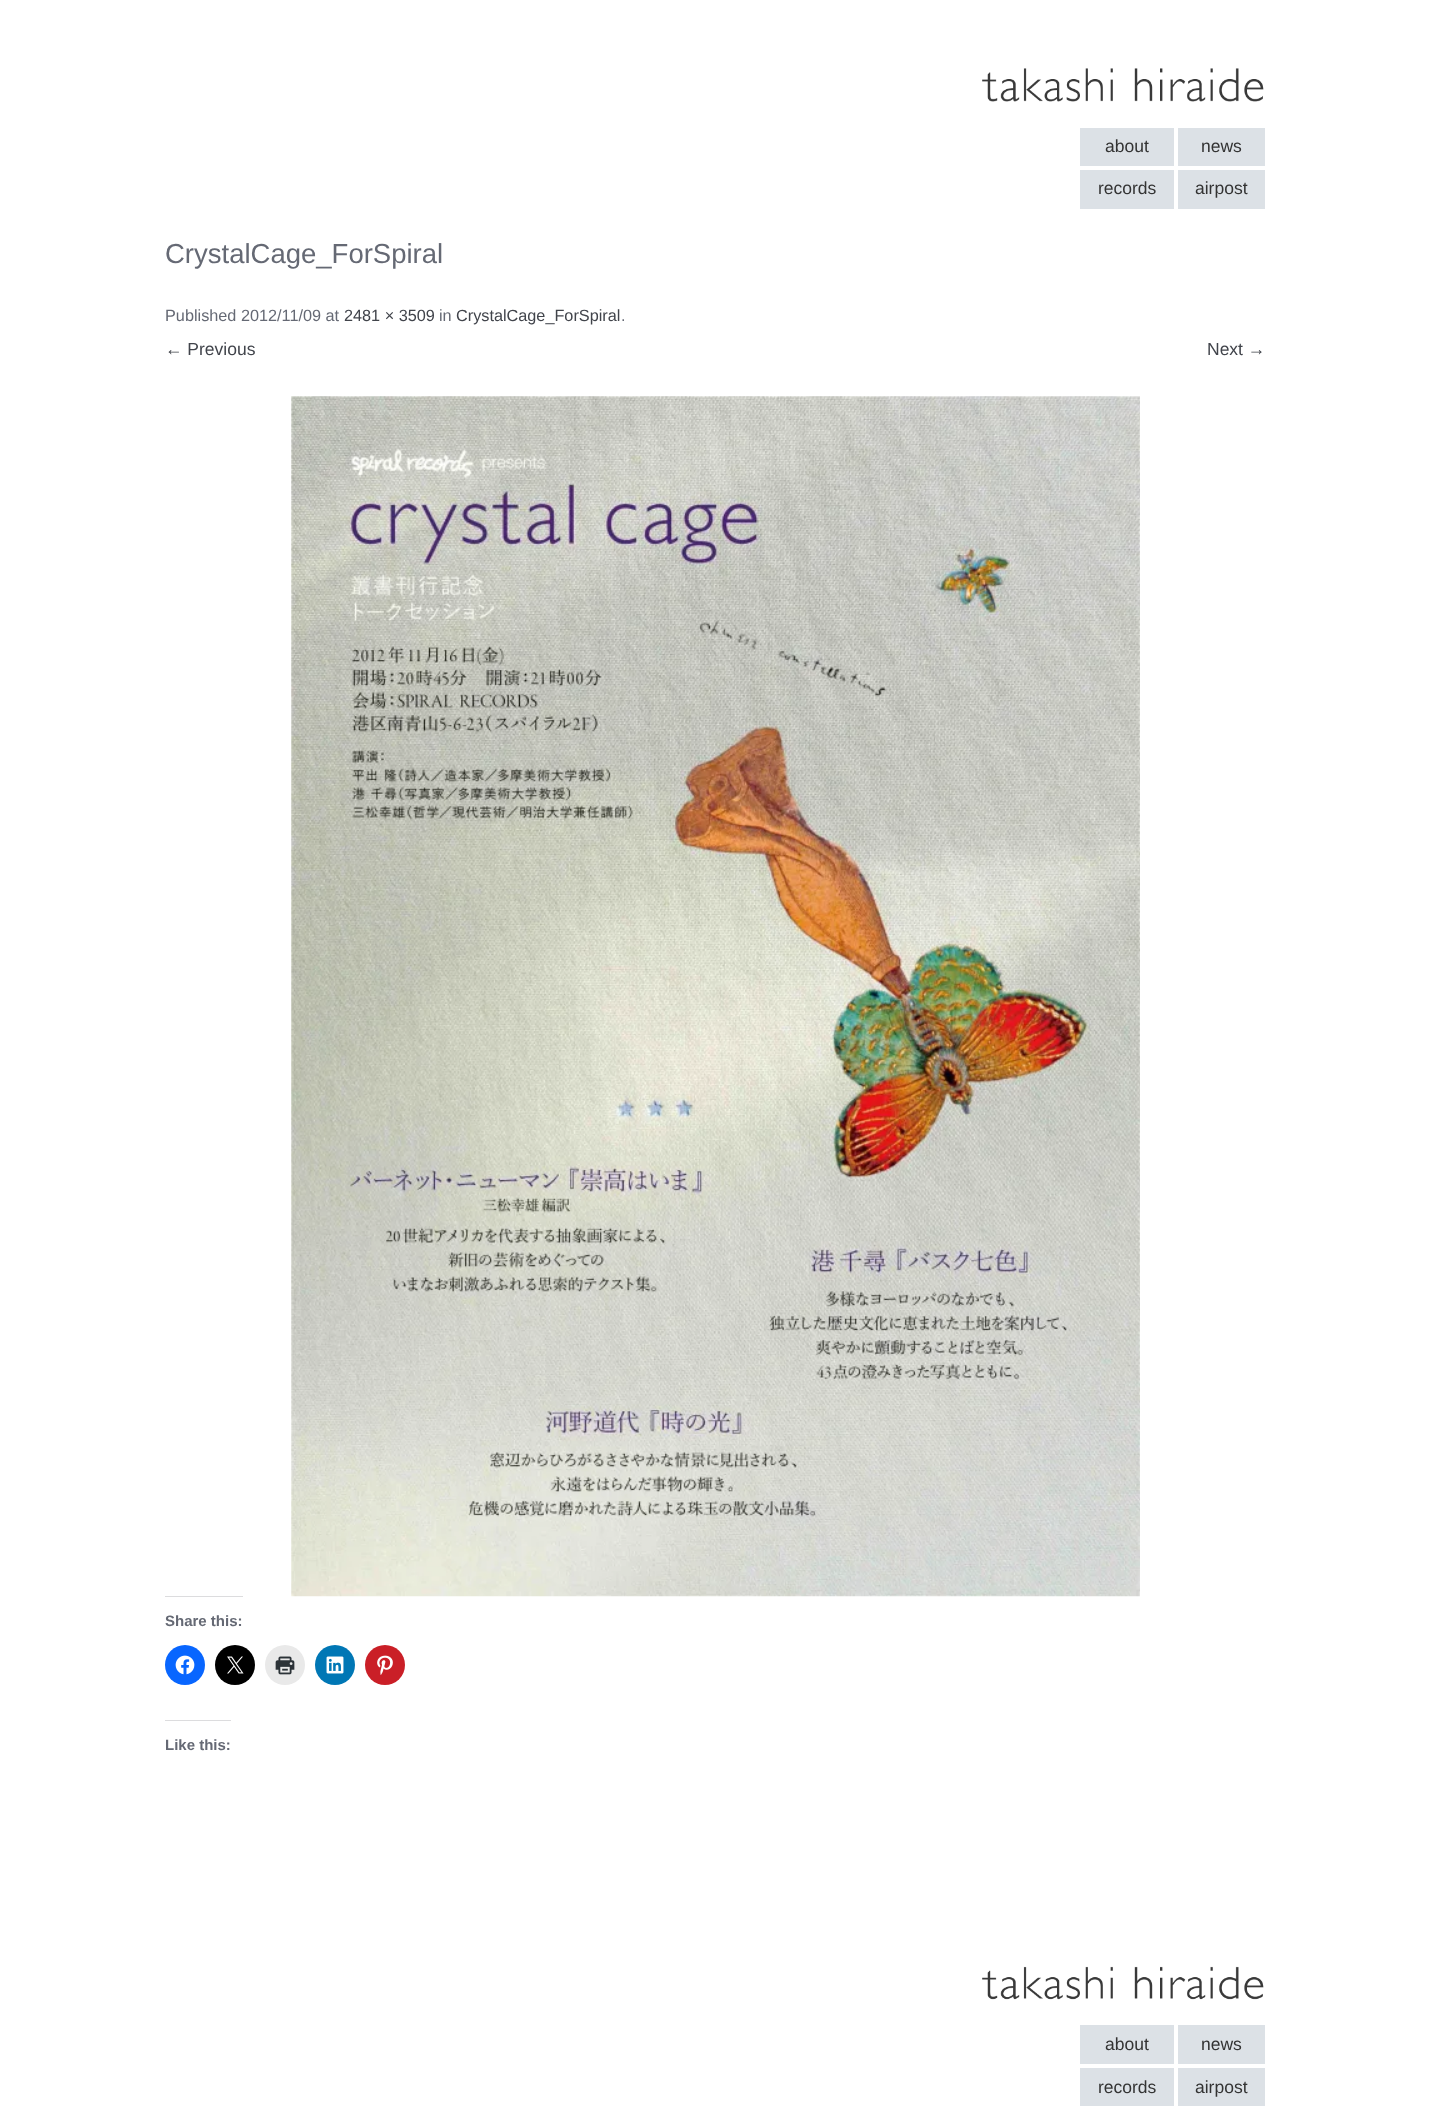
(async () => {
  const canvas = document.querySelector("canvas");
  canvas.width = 1430;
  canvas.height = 2126;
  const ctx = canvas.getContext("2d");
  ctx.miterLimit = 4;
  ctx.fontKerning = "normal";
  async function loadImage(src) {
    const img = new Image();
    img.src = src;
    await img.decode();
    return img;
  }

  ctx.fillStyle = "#ffffff";
  ctx.fillRect(0, 0, 1430, 2126);
  ctx.drawImage(await loadImage("img/1.png"), 982, 68, 282, 34);
  for (const [x, y, w, h, color] of [
    [1080, 128, 94, 38, "#dce1e6"],
    [1178, 128, 87, 38, "#dce1e6"],
    [1080, 170, 94, 39, "#dce1e6"],
    [1178, 170, 87, 39, "#dce1e6"],
  ]) {
    ctx.fillStyle = color;
    ctx.fillRect(x, y, w, h);
  }
  ctx.drawImage(await loadImage("img/2.png"), 291, 396, 849, 1201);
  ctx.fillStyle = "#dcdcde";
  ctx.fillRect(165, 1596, 78, 1);
  ctx.fillStyle = "#0866ff";
  ctx.beginPath();
  ctx.arc(185, 1665, 20, 0, Math.PI * 2);
  ctx.fill();
  ctx.drawImage(await loadImage("img/3.png"), 175, 1655, 20, 20);
  ctx.fillStyle = "#000000";
  ctx.beginPath();
  ctx.arc(235, 1665, 20, 0, Math.PI * 2);
  ctx.fill();
  ctx.drawImage(await loadImage("img/4.png"), 227, 1656, 17, 18);
  ctx.fillStyle = "#e9e9e9";
  ctx.beginPath();
  ctx.arc(285, 1665, 20, 0, Math.PI * 2);
  ctx.fill();
  ctx.drawImage(await loadImage("img/5.png"), 275, 1656, 20, 19);
  ctx.fillStyle = "#0077b5";
  ctx.beginPath();
  ctx.arc(335, 1665, 20, 0, Math.PI * 2);
  ctx.fill();
  ctx.drawImage(await loadImage("img/6.png"), 326, 1656, 18, 18);
  ctx.fillStyle = "#ca1f27";
  ctx.beginPath();
  ctx.arc(385, 1665, 20, 0, Math.PI * 2);
  ctx.fill();
  ctx.drawImage(await loadImage("img/7.png"), 377, 1655, 16, 20);
  ctx.fillStyle = "#dcdcde";
  ctx.fillRect(165, 1720, 66, 1);
  ctx.drawImage(await loadImage("img/8.png"), 982, 1966, 282, 34);
  for (const [x, y, w, h, color] of [
    [1080, 2025, 94, 39, "#dce1e6"],
    [1178, 2025, 87, 39, "#dce1e6"],
    [1080, 2068, 94, 38, "#dce1e6"],
    [1178, 2068, 87, 38, "#dce1e6"],
  ]) {
    ctx.fillStyle = color;
    ctx.fillRect(x, y, w, h);
  }
  ctx.font = "17.5px Liberation Sans";
  ctx.fillStyle = "#333333";
  for (const [text, x, y] of [
    ["about", 1105, 152],
    ["news", 1201, 152],
    ["records", 1098, 194],
    ["airpost", 1195, 194],
  ]) {
    ctx.fillText(text, x, y);
  }
  ctx.font = "27.5px Liberation Sans";
  ctx.fillStyle = "#656974";
  ctx.fillText("CrystalCage_ForSpiral", 165, 263);
  ctx.font = "16.25px Liberation Sans";
  ctx.fillText("Published 2012/11/09 at", 165, 321);
  ctx.fillStyle = "#41444b";
  ctx.fillText("2481 × 3509", 344, 321);
  ctx.fillStyle = "#656974";
  ctx.fillText("in", 439, 321);
  ctx.fillStyle = "#41444b";
  ctx.fillText("CrystalCage_ForSpiral", 456, 321);
  ctx.fillStyle = "#656974";
  ctx.fillText(".", 621, 321);
  ctx.font = "17.5px Liberation Sans";
  ctx.fillStyle = "#41444b";
  ctx.fillText("← Previous", 165, 355);
  ctx.fillText("Next →", 1207, 355);
  ctx.font = "bold 15px Liberation Sans";
  ctx.fillStyle = "#656974";
  ctx.fillText("Share this:", 165, 1626);
  ctx.fillText("Like this:", 165, 1750);
  ctx.font = "17.5px Liberation Sans";
  ctx.fillStyle = "#333333";
  for (const [text, x, y] of [
    ["about", 1105, 2050],
    ["news", 1201, 2050],
    ["records", 1098, 2093],
    ["airpost", 1195, 2093],
  ]) {
    ctx.fillText(text, x, y);
  }
})();
